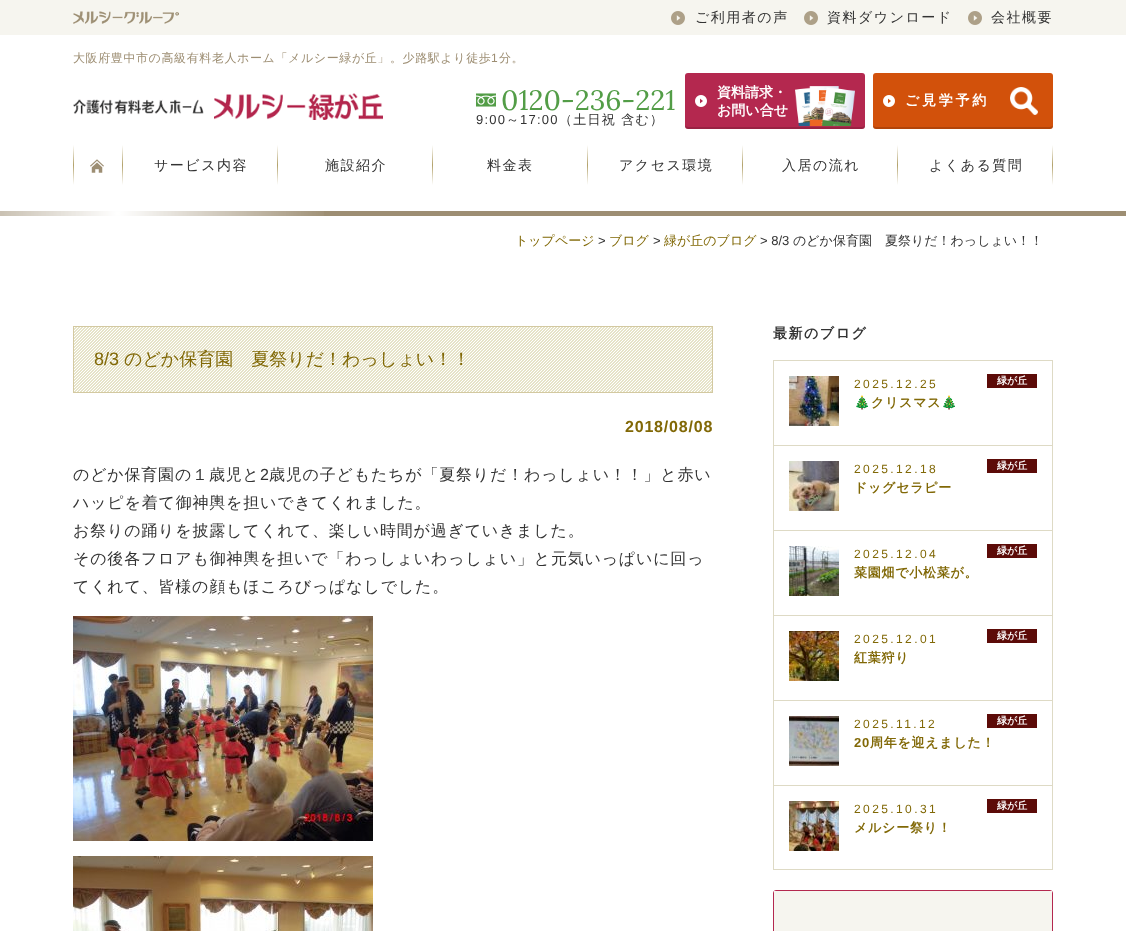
(async () => {
  const canvas = document.querySelector("canvas");
  canvas.width = 1126;
  canvas.height = 931;
  const ctx = canvas.getContext("2d");
  ctx.miterLimit = 4;
  ctx.fontKerning = "normal";
  async function loadImage(src) {
    const img = new Image();
    img.src = src;
    await img.decode();
    return img;
  }
  let gradient, path;

  ctx.fillStyle = "#ffffff";
  ctx.fillRect(0, 0, 1126, 931);
  ctx.fillStyle = "#f6f5ef";
  ctx.fillRect(0, 0, 1126, 35);
  ctx.drawImage(await loadImage("img/1.png"), 73, 11, 106, 13);
  ctx.drawImage(await loadImage("img/2.png"), 671, 11, 14, 14);
  ctx.drawImage(await loadImage("img/2.png"), 804, 11, 14, 14);
  ctx.drawImage(await loadImage("img/2.png"), 968, 11, 14, 14);
  ctx.drawImage(await loadImage("img/3.png"), 73, 93, 310, 27);
  ctx.drawImage(await loadImage("img/4.png"), 476, 93, 20, 14);
  ctx.fillStyle = "#b4284f";
  ctx.beginPath();
  ctx.roundRect(685, 73, 180, 56, 3);
  ctx.fill();
  ctx.fillStyle = "rgba(0, 0, 0, 0.15)";
  path = new Path2D("M685 126C685 128 686 129 688 129H862C864 129 865 128 865 126L862 127H746H688Z");
  ctx.fill(path);
  ctx.drawImage(await loadImage("img/5.png"), 695, 95, 12, 12);
  ctx.drawImage(await loadImage("img/6.png"), 795, 86, 60, 41);
  ctx.fillStyle = "#d2510b";
  ctx.beginPath();
  ctx.roundRect(873, 73, 180, 56, 3);
  ctx.fill();
  ctx.fillStyle = "rgba(0, 0, 0, 0.15)";
  path = new Path2D("M873 126C873 128 874 129 876 129H1050C1052 129 1053 128 1053 126L1050 127H934H876Z");
  ctx.fill(path);
  ctx.drawImage(await loadImage("img/7.png"), 883, 95, 12, 12);
  ctx.drawImage(await loadImage("img/8.png"), 1010, 87, 28, 28);
  gradient = ctx.createLinearGradient(74, 145, 74, 185);
  gradient.addColorStop(0, "#ffffff");
  gradient.addColorStop(0.5, "#b3a26b");
  gradient.addColorStop(1, "#ffffff");
  ctx.fillStyle = gradient;
  ctx.fillRect(73, 145, 1, 40);
  ctx.drawImage(await loadImage("img/9.png"), 90, 159, 14, 14);
  gradient = ctx.createLinearGradient(123, 145, 123, 185);
  gradient.addColorStop(0, "#ffffff");
  gradient.addColorStop(0.5, "#b3a26b");
  gradient.addColorStop(1, "#ffffff");
  ctx.fillStyle = gradient;
  ctx.fillRect(122, 145, 1, 40);
  gradient = ctx.createLinearGradient(278, 145, 278, 185);
  gradient.addColorStop(0, "#ffffff");
  gradient.addColorStop(0.5, "#b3a26b");
  gradient.addColorStop(1, "#ffffff");
  ctx.fillStyle = gradient;
  ctx.fillRect(277, 145, 1, 40);
  gradient = ctx.createLinearGradient(433, 145, 433, 185);
  gradient.addColorStop(0, "#ffffff");
  gradient.addColorStop(0.5, "#b3a26b");
  gradient.addColorStop(1, "#ffffff");
  ctx.fillStyle = gradient;
  ctx.fillRect(432, 145, 1, 40);
  gradient = ctx.createLinearGradient(588, 145, 588, 185);
  gradient.addColorStop(0, "#ffffff");
  gradient.addColorStop(0.5, "#b3a26b");
  gradient.addColorStop(1, "#ffffff");
  ctx.fillStyle = gradient;
  ctx.fillRect(587, 145, 1, 40);
  gradient = ctx.createLinearGradient(743, 145, 743, 185);
  gradient.addColorStop(0, "#ffffff");
  gradient.addColorStop(0.5, "#b3a26b");
  gradient.addColorStop(1, "#ffffff");
  ctx.fillStyle = gradient;
  ctx.fillRect(742, 145, 1, 40);
  gradient = ctx.createLinearGradient(898, 145, 898, 185);
  gradient.addColorStop(0, "#ffffff");
  gradient.addColorStop(0.5, "#b3a26b");
  gradient.addColorStop(1, "#ffffff");
  ctx.fillStyle = gradient;
  ctx.fillRect(897, 145, 1, 40);
  gradient = ctx.createLinearGradient(1053, 145, 1053, 185);
  gradient.addColorStop(0, "#ffffff");
  gradient.addColorStop(0.5, "#b3a26b");
  gradient.addColorStop(1, "#ffffff");
  ctx.fillStyle = gradient;
  ctx.fillRect(1052, 145, 1, 40);
  ctx.fillStyle = "#9d8e73";
  ctx.fillRect(324, 211, 802, 5);
  ctx.drawImage(await loadImage("img/10.png"), 0, 211, 324, 5);
  ctx.drawImage(await loadImage("img/11.png"), 74, 327, 638, 65);
  ctx.strokeStyle = "#d3c9a1";
  ctx.strokeRect(73.5, 326.5, 639, 66);
  ctx.drawImage(await loadImage("img/12.png"), 73, 616, 300, 225);
  ctx.drawImage(await loadImage("img/13.png"), 73, 856, 300, 75);
  for (const [x, y, w, h, color] of [
    [773, 360, 280, 1, "#dedac5"],
    [1052, 360, 1, 85, "#dedac5"],
    [773, 360, 1, 85, "#dedac5"],
  ]) {
    ctx.fillStyle = color;
    ctx.fillRect(x, y, w, h);
  }
  ctx.drawImage(await loadImage("img/14.png"), 789, 376, 50, 50);
  for (const [x, y, w, h, color] of [
    [987, 374, 50, 14, "#5c0b08"],
    [773, 445, 280, 1, "#dedac5"],
    [1052, 445, 1, 85, "#dedac5"],
    [773, 445, 1, 85, "#dedac5"],
  ]) {
    ctx.fillStyle = color;
    ctx.fillRect(x, y, w, h);
  }
  ctx.drawImage(await loadImage("img/15.png"), 789, 461, 50, 50);
  for (const [x, y, w, h, color] of [
    [987, 459, 50, 14, "#5c0b08"],
    [773, 530, 280, 1, "#dedac5"],
    [1052, 530, 1, 85, "#dedac5"],
    [773, 530, 1, 85, "#dedac5"],
  ]) {
    ctx.fillStyle = color;
    ctx.fillRect(x, y, w, h);
  }
  ctx.drawImage(await loadImage("img/16.png"), 789, 546, 50, 50);
  for (const [x, y, w, h, color] of [
    [987, 544, 50, 14, "#5c0b08"],
    [773, 615, 280, 1, "#dedac5"],
    [1052, 615, 1, 85, "#dedac5"],
    [773, 615, 1, 85, "#dedac5"],
  ]) {
    ctx.fillStyle = color;
    ctx.fillRect(x, y, w, h);
  }
  ctx.drawImage(await loadImage("img/17.png"), 789, 631, 50, 50);
  for (const [x, y, w, h, color] of [
    [987, 629, 50, 14, "#5c0b08"],
    [773, 700, 280, 1, "#dedac5"],
    [1052, 700, 1, 85, "#dedac5"],
    [773, 700, 1, 85, "#dedac5"],
  ]) {
    ctx.fillStyle = color;
    ctx.fillRect(x, y, w, h);
  }
  ctx.drawImage(await loadImage("img/18.png"), 789, 716, 50, 50);
  ctx.fillStyle = "#5c0b08";
  ctx.fillRect(987, 714, 50, 14);
  ctx.strokeStyle = "#dedac5";
  ctx.strokeRect(773.5, 785.5, 279, 84);
  ctx.drawImage(await loadImage("img/19.png"), 789, 801, 50, 50);
  ctx.fillRect(987, 799, 50, 14);
  ctx.beginPath();
  ctx.roundRect(773.5, 890.5, 279, 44, 2.5);
  ctx.strokeStyle = "#b4284f";
  ctx.stroke();
  ctx.fillStyle = "#f6f5ef";
  ctx.fillRect(774, 891, 278, 40);
  ctx.letterSpacing = "1.5px";
  ctx.font = "500 14px WenQuanYi Zen Hei";
  ctx.fillStyle = "#333333";
  for (const [text, x, y] of [
    ["ご利用者の声", 695, 22],
    ["資料ダウンロード", 827, 22],
    ["会社概要", 991, 22],
  ]) {
    ctx.fillText(text, x, y);
  }
  ctx.letterSpacing = "0.6px";
  ctx.font = "500 12px WenQuanYi Zen Hei";
  ctx.fillStyle = "#9d8e73";
  ctx.fillText("大阪府豊中市の高級有料老人ホーム「メルシー緑が丘」。少路駅より徒歩", 73, 62);
  ctx.font = "12px Liberation Sans";
  ctx.fillText("1", 491, 62);
  ctx.font = "500 12px WenQuanYi Zen Hei";
  ctx.fillText("分。", 499, 62);
  ctx.letterSpacing = "0px";
  ctx.font = "28px Sumana";
  ctx.fillStyle = "#539d47";
  ctx.fillText("0120-236-221", 501, 110);
  ctx.letterSpacing = "1.25px";
  ctx.font = "13px Liberation Sans";
  ctx.fillStyle = "#333333";
  ctx.fillText("9:00", 476, 124);
  ctx.font = "500 13px WenQuanYi Zen Hei";
  ctx.fillText("～", 506, 124);
  ctx.font = "13px Liberation Sans";
  ctx.fillText("17:00", 520, 124);
  ctx.font = "500 13px WenQuanYi Zen Hei";
  ctx.fillText("（土日祝 含む）", 559, 124);
  ctx.letterSpacing = "0px";
  ctx.font = "bold 14px WenQuanYi Zen Hei";
  ctx.fillStyle = "#ffffff";
  ctx.fillText("資料請求・", 717, 97);
  ctx.fillText("お問い合せ", 717, 115);
  ctx.letterSpacing = "2.75px";
  ctx.fillText("ご見学予約", 905, 105);
  ctx.letterSpacing = "1.5px";
  ctx.font = "500 14px WenQuanYi Zen Hei";
  ctx.fillStyle = "#333333";
  for (const [text, x, y] of [
    ["サービス内容", 154, 170],
    ["施設紹介", 325, 170],
    ["料金表", 487, 170],
    ["アクセス環境", 619, 170],
    ["入居の流れ", 782, 170],
    ["よくある質問", 929, 170],
  ]) {
    ctx.fillText(text, x, y);
  }
  ctx.letterSpacing = "0px";
  ctx.font = "500 13px WenQuanYi Zen Hei";
  ctx.fillStyle = "#816806";
  ctx.fillText("トップページ", 515, 245);
  ctx.font = "13px Liberation Sans";
  ctx.fillStyle = "#333333";
  ctx.fillText(">", 598, 245);
  ctx.font = "500 13px WenQuanYi Zen Hei";
  ctx.fillStyle = "#816806";
  ctx.fillText("ブログ", 609, 245);
  ctx.font = "13px Liberation Sans";
  ctx.fillStyle = "#333333";
  ctx.fillText(">", 653, 245);
  ctx.font = "500 13px WenQuanYi Zen Hei";
  ctx.fillStyle = "#816806";
  ctx.fillText("緑が丘のブログ", 664, 245);
  ctx.font = "13px Liberation Sans";
  ctx.fillStyle = "#333333";
  ctx.fillText("> 8/3", 760, 245);
  ctx.font = "500 13px WenQuanYi Zen Hei";
  ctx.fillText("のどか保育園　夏祭りだ！わっしょい！！", 793, 245);
  ctx.font = "18px Liberation Sans";
  ctx.fillStyle = "#816806";
  ctx.fillText("8/3", 94, 365);
  ctx.font = "500 18px WenQuanYi Zen Hei";
  ctx.fillText("のどか保育園　夏祭りだ！わっしょい！！", 124, 365);
  ctx.letterSpacing = "0.8px";
  ctx.font = "bold 16px Liberation Sans";
  ctx.fillText("2018/08/08", 625, 432);
  ctx.font = "500 16px WenQuanYi Zen Hei";
  ctx.fillStyle = "#333333";
  ctx.fillText("のどか保育園の１歳児と", 73, 480);
  ctx.font = "16px Liberation Sans";
  ctx.fillText("2", 260, 480);
  ctx.font = "500 16px WenQuanYi Zen Hei";
  for (const [text, x, y] of [
    ["歳児の子どもたちが「夏祭りだ！わっしょい！！」と赤い", 269, 480],
    ["ハッピを着て御神輿を担いできてくれました。", 73, 508],
    ["お祭りの踊りを披露してくれて、楽しい時間が過ぎていきました。", 73, 536],
    ["その後各フロアも御神輿を担いで「わっしょいわっしょい」と元気いっぱいに回っ", 73, 564],
    ["てくれて、皆様の顔もほころびっぱなしでした。", 73, 592],
  ]) {
    ctx.fillText(text, x, y);
  }
  ctx.letterSpacing = "1.5px";
  ctx.font = "bold 14px WenQuanYi Zen Hei";
  ctx.fillText("最新のブログ", 773, 338);
  ctx.letterSpacing = "2.4px";
  ctx.font = "12px Liberation Sans";
  ctx.fillStyle = "#816806";
  ctx.fillText("2025.12.25", 854, 388);
  ctx.letterSpacing = "0px";
  ctx.font = "bold 10px WenQuanYi Zen Hei";
  ctx.fillStyle = "#ffffff";
  ctx.fillText("緑が丘", 997, 384);
  ctx.letterSpacing = "0.75px";
  ctx.font = "bold 13px Noto Color Emoji";
  ctx.fillStyle = "#816806";
  ctx.fillText("🎄", 854, 407);
  ctx.font = "bold 13px WenQuanYi Zen Hei";
  ctx.fillText("クリスマス", 871, 407);
  ctx.font = "bold 13px Noto Color Emoji";
  ctx.fillText("🎄", 941, 407);
  ctx.letterSpacing = "2.4px";
  ctx.font = "12px Liberation Sans";
  ctx.fillText("2025.12.18", 854, 473);
  ctx.letterSpacing = "0px";
  ctx.font = "bold 10px WenQuanYi Zen Hei";
  ctx.fillStyle = "#ffffff";
  ctx.fillText("緑が丘", 997, 469);
  ctx.letterSpacing = "0.75px";
  ctx.font = "bold 13px WenQuanYi Zen Hei";
  ctx.fillStyle = "#816806";
  ctx.fillText("ドッグセラピー", 854, 492);
  ctx.letterSpacing = "2.4px";
  ctx.font = "12px Liberation Sans";
  ctx.fillText("2025.12.04", 854, 558);
  ctx.letterSpacing = "0px";
  ctx.font = "bold 10px WenQuanYi Zen Hei";
  ctx.fillStyle = "#ffffff";
  ctx.fillText("緑が丘", 997, 554);
  ctx.letterSpacing = "0.75px";
  ctx.font = "bold 13px WenQuanYi Zen Hei";
  ctx.fillStyle = "#816806";
  ctx.fillText("菜園畑で小松菜が。", 854, 577);
  ctx.letterSpacing = "2.4px";
  ctx.font = "12px Liberation Sans";
  ctx.fillText("2025.12.01", 854, 643);
  ctx.letterSpacing = "0px";
  ctx.font = "bold 10px WenQuanYi Zen Hei";
  ctx.fillStyle = "#ffffff";
  ctx.fillText("緑が丘", 997, 639);
  ctx.letterSpacing = "0.75px";
  ctx.font = "bold 13px WenQuanYi Zen Hei";
  ctx.fillStyle = "#816806";
  ctx.fillText("紅葉狩り", 854, 662);
  ctx.letterSpacing = "2.4px";
  ctx.font = "12px Liberation Sans";
  ctx.fillText("2025.11.12", 854, 728);
  ctx.letterSpacing = "0px";
  ctx.font = "bold 10px WenQuanYi Zen Hei";
  ctx.fillStyle = "#ffffff";
  ctx.fillText("緑が丘", 997, 724);
  ctx.letterSpacing = "0.75px";
  ctx.font = "bold 13px Liberation Sans";
  ctx.fillStyle = "#816806";
  ctx.fillText("20", 854, 747);
  ctx.font = "bold 13px WenQuanYi Zen Hei";
  ctx.fillText("周年を迎えました！", 870, 747);
  ctx.letterSpacing = "2.4px";
  ctx.font = "12px Liberation Sans";
  ctx.fillText("2025.10.31", 854, 813);
  ctx.letterSpacing = "0px";
  ctx.font = "bold 10px WenQuanYi Zen Hei";
  ctx.fillStyle = "#ffffff";
  ctx.fillText("緑が丘", 997, 809);
  ctx.letterSpacing = "0.75px";
  ctx.font = "bold 13px WenQuanYi Zen Hei";
  ctx.fillStyle = "#816806";
  ctx.fillText("メルシー祭り！", 854, 832);
})();
